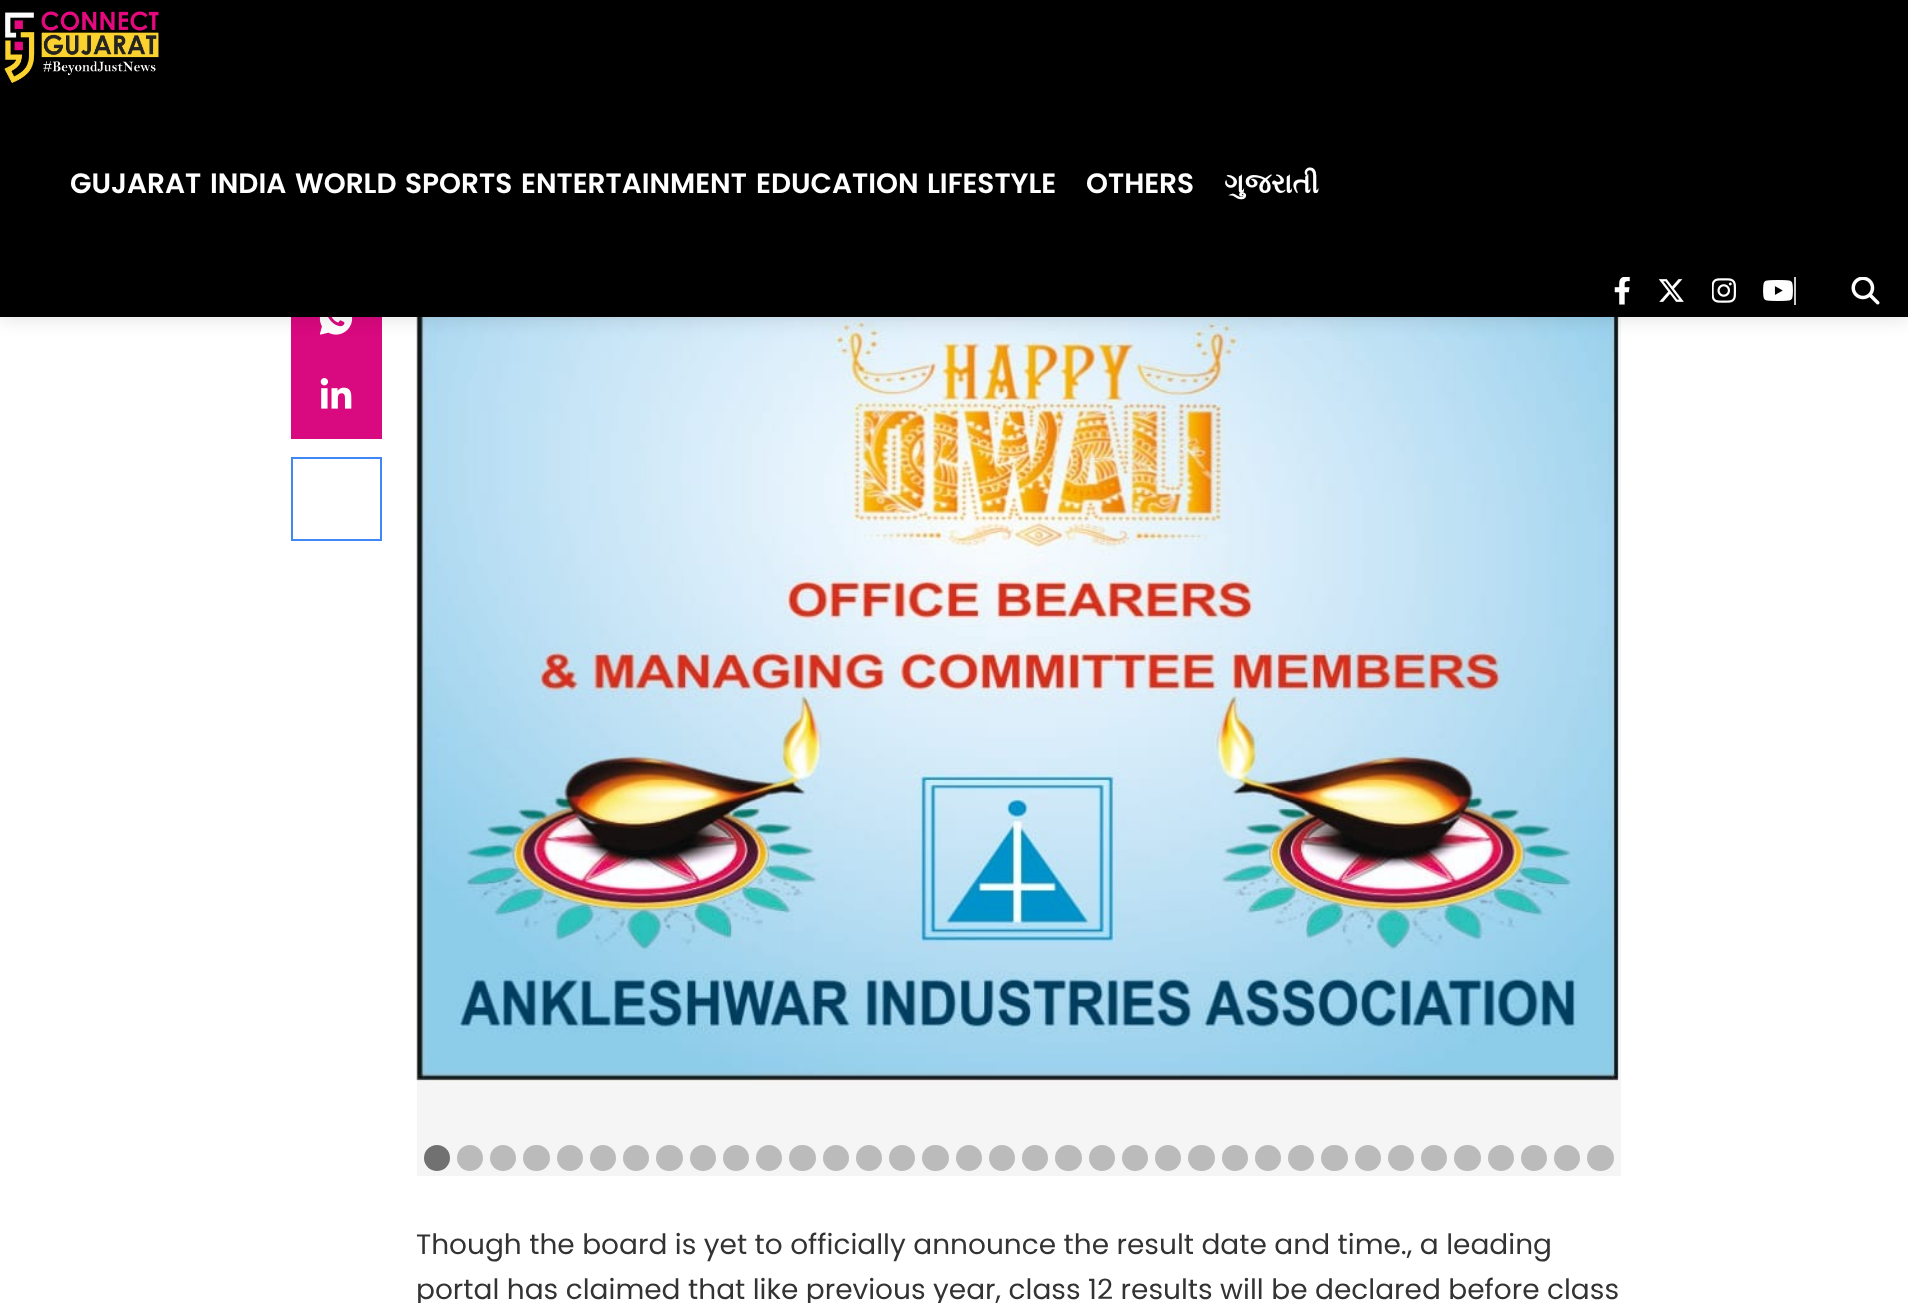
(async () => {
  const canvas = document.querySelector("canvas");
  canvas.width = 1908;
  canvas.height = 1303;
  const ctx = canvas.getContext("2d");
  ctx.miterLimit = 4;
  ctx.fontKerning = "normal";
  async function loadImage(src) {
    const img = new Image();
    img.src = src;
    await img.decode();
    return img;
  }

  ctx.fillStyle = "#ffffff";
  ctx.fillRect(0, 0, 1908, 1303);
  ctx.fillStyle = "#d9097f";
  ctx.fillRect(291, 317, 91, 122);
  ctx.drawImage(await loadImage("img/7.png"), 319, 317, 34, 18);
  ctx.fillStyle = "#f5f5f5";
  ctx.fillRect(417, 317, 1204, 859);
  ctx.drawImage(await loadImage("img/9.png"), 416, 317, 1204, 764);
  ctx.fillStyle = "rgba(0, 0, 0, 0.1)";
  ctx.filter = "blur(9px)";
  ctx.beginPath();
  ctx.rect(0, 4, 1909, 316);
  ctx.fill();
  ctx.filter = "none";
  ctx.fillStyle = "#000000";
  ctx.fillRect(0, 0, 1908, 317);
  ctx.drawImage(await loadImage("img/1.png"), 4, 11, 155, 72);
  ctx.drawImage(await loadImage("img/2.png"), 1614, 277, 16, 28);
  ctx.drawImage(await loadImage("img/3.png"), 1658, 279, 26, 23);
  ctx.drawImage(await loadImage("img/4.png"), 1712, 278, 24, 25);
  ctx.drawImage(await loadImage("img/5.png"), 1763, 280, 30, 21);
  ctx.fillStyle = "#cdcaca";
  ctx.fillRect(1794, 277, 2, 28);
  ctx.drawImage(await loadImage("img/6.png"), 1851, 277, 29, 28);
  ctx.drawImage(await loadImage("img/8.png"), 320, 378, 32, 31);
  ctx.strokeStyle = "#4086f4";
  ctx.lineWidth = 2;
  ctx.strokeRect(292, 458, 89, 82);
  ctx.fillStyle = "#717171";
  ctx.beginPath();
  ctx.arc(437, 1158, 13, 0, Math.PI * 2);
  ctx.fill();
  ctx.fillStyle = "#bbbbbb";
  ctx.beginPath();
  ctx.arc(470, 1158, 13, 0, Math.PI * 2);
  ctx.fill();
  ctx.beginPath();
  ctx.arc(503, 1158, 13, 0, Math.PI * 2);
  ctx.fill();
  ctx.beginPath();
  ctx.roundRect(523, 1145, 27, 26, 13);
  ctx.fill();
  ctx.beginPath();
  ctx.arc(570, 1158, 13, 0, Math.PI * 2);
  ctx.fill();
  ctx.beginPath();
  ctx.arc(603, 1158, 13, 0, Math.PI * 2);
  ctx.fill();
  ctx.beginPath();
  ctx.arc(636, 1158, 13, 0, Math.PI * 2);
  ctx.fill();
  ctx.beginPath();
  ctx.roundRect(656, 1145, 27, 26, 13);
  ctx.fill();
  ctx.beginPath();
  ctx.arc(703, 1158, 13, 0, Math.PI * 2);
  ctx.fill();
  ctx.beginPath();
  ctx.arc(736, 1158, 13, 0, Math.PI * 2);
  ctx.fill();
  ctx.beginPath();
  ctx.arc(769, 1158, 13, 0, Math.PI * 2);
  ctx.fill();
  ctx.beginPath();
  ctx.roundRect(789, 1145, 27, 26, 13);
  ctx.fill();
  ctx.beginPath();
  ctx.arc(836, 1158, 13, 0, Math.PI * 2);
  ctx.fill();
  ctx.beginPath();
  ctx.arc(869, 1158, 13, 0, Math.PI * 2);
  ctx.fill();
  ctx.beginPath();
  ctx.arc(902, 1158, 13, 0, Math.PI * 2);
  ctx.fill();
  ctx.beginPath();
  ctx.roundRect(922, 1145, 27, 26, 13);
  ctx.fill();
  ctx.beginPath();
  ctx.arc(969, 1158, 13, 0, Math.PI * 2);
  ctx.fill();
  ctx.beginPath();
  ctx.arc(1002, 1158, 13, 0, Math.PI * 2);
  ctx.fill();
  ctx.beginPath();
  ctx.arc(1035, 1158, 13, 0, Math.PI * 2);
  ctx.fill();
  ctx.beginPath();
  ctx.roundRect(1055, 1145, 27, 26, 13);
  ctx.fill();
  ctx.beginPath();
  ctx.arc(1102, 1158, 13, 0, Math.PI * 2);
  ctx.fill();
  ctx.beginPath();
  ctx.arc(1135, 1158, 13, 0, Math.PI * 2);
  ctx.fill();
  ctx.beginPath();
  ctx.arc(1168, 1158, 13, 0, Math.PI * 2);
  ctx.fill();
  ctx.beginPath();
  ctx.roundRect(1188, 1145, 27, 26, 13);
  ctx.fill();
  ctx.beginPath();
  ctx.arc(1235, 1158, 13, 0, Math.PI * 2);
  ctx.fill();
  ctx.beginPath();
  ctx.arc(1268, 1158, 13, 0, Math.PI * 2);
  ctx.fill();
  ctx.beginPath();
  ctx.arc(1301, 1158, 13, 0, Math.PI * 2);
  ctx.fill();
  ctx.beginPath();
  ctx.roundRect(1321, 1145, 27, 26, 13);
  ctx.fill();
  ctx.beginPath();
  ctx.arc(1368, 1158, 13, 0, Math.PI * 2);
  ctx.fill();
  ctx.beginPath();
  ctx.arc(1401, 1158, 13, 0, Math.PI * 2);
  ctx.fill();
  ctx.beginPath();
  ctx.arc(1434, 1158, 13, 0, Math.PI * 2);
  ctx.fill();
  ctx.beginPath();
  ctx.roundRect(1454, 1145, 27, 26, 13);
  ctx.fill();
  ctx.beginPath();
  ctx.arc(1501, 1158, 13, 0, Math.PI * 2);
  ctx.fill();
  ctx.beginPath();
  ctx.arc(1534, 1158, 13, 0, Math.PI * 2);
  ctx.fill();
  ctx.beginPath();
  ctx.arc(1567, 1158, 13, 0, Math.PI * 2);
  ctx.fill();
  ctx.beginPath();
  ctx.roundRect(1587, 1145, 27, 26, 13);
  ctx.fill();
  ctx.font = "600 28px Poppins";
  ctx.fillStyle = "#ffffff";
  for (const [text, x, y] of [
    ["GUJARAT", 70, 193],
    ["INDIA", 210, 193],
    ["WORLD", 295, 193],
    ["SPORTS", 405, 193],
    ["ENTERTAINMENT", 521, 193],
    ["EDUCATION", 756, 193],
    ["LIFESTYLE", 927, 193],
    ["OTHERS", 1086, 193],
  ]) {
    ctx.fillText(text, x, y);
  }
  ctx.font = "bold 28px FreeSerif";
  ctx.fillText("ગુજરાતી", 1224, 193);
  ctx.font = "28px Poppins";
  ctx.fillStyle = "#333333";
  ctx.fillText("Though the board is yet to officially announce the result date and time., a leading", 416, 1254);
  ctx.fillText("portal has claimed that like previous year, class 12 results will be declared before class", 416, 1299);
})();
